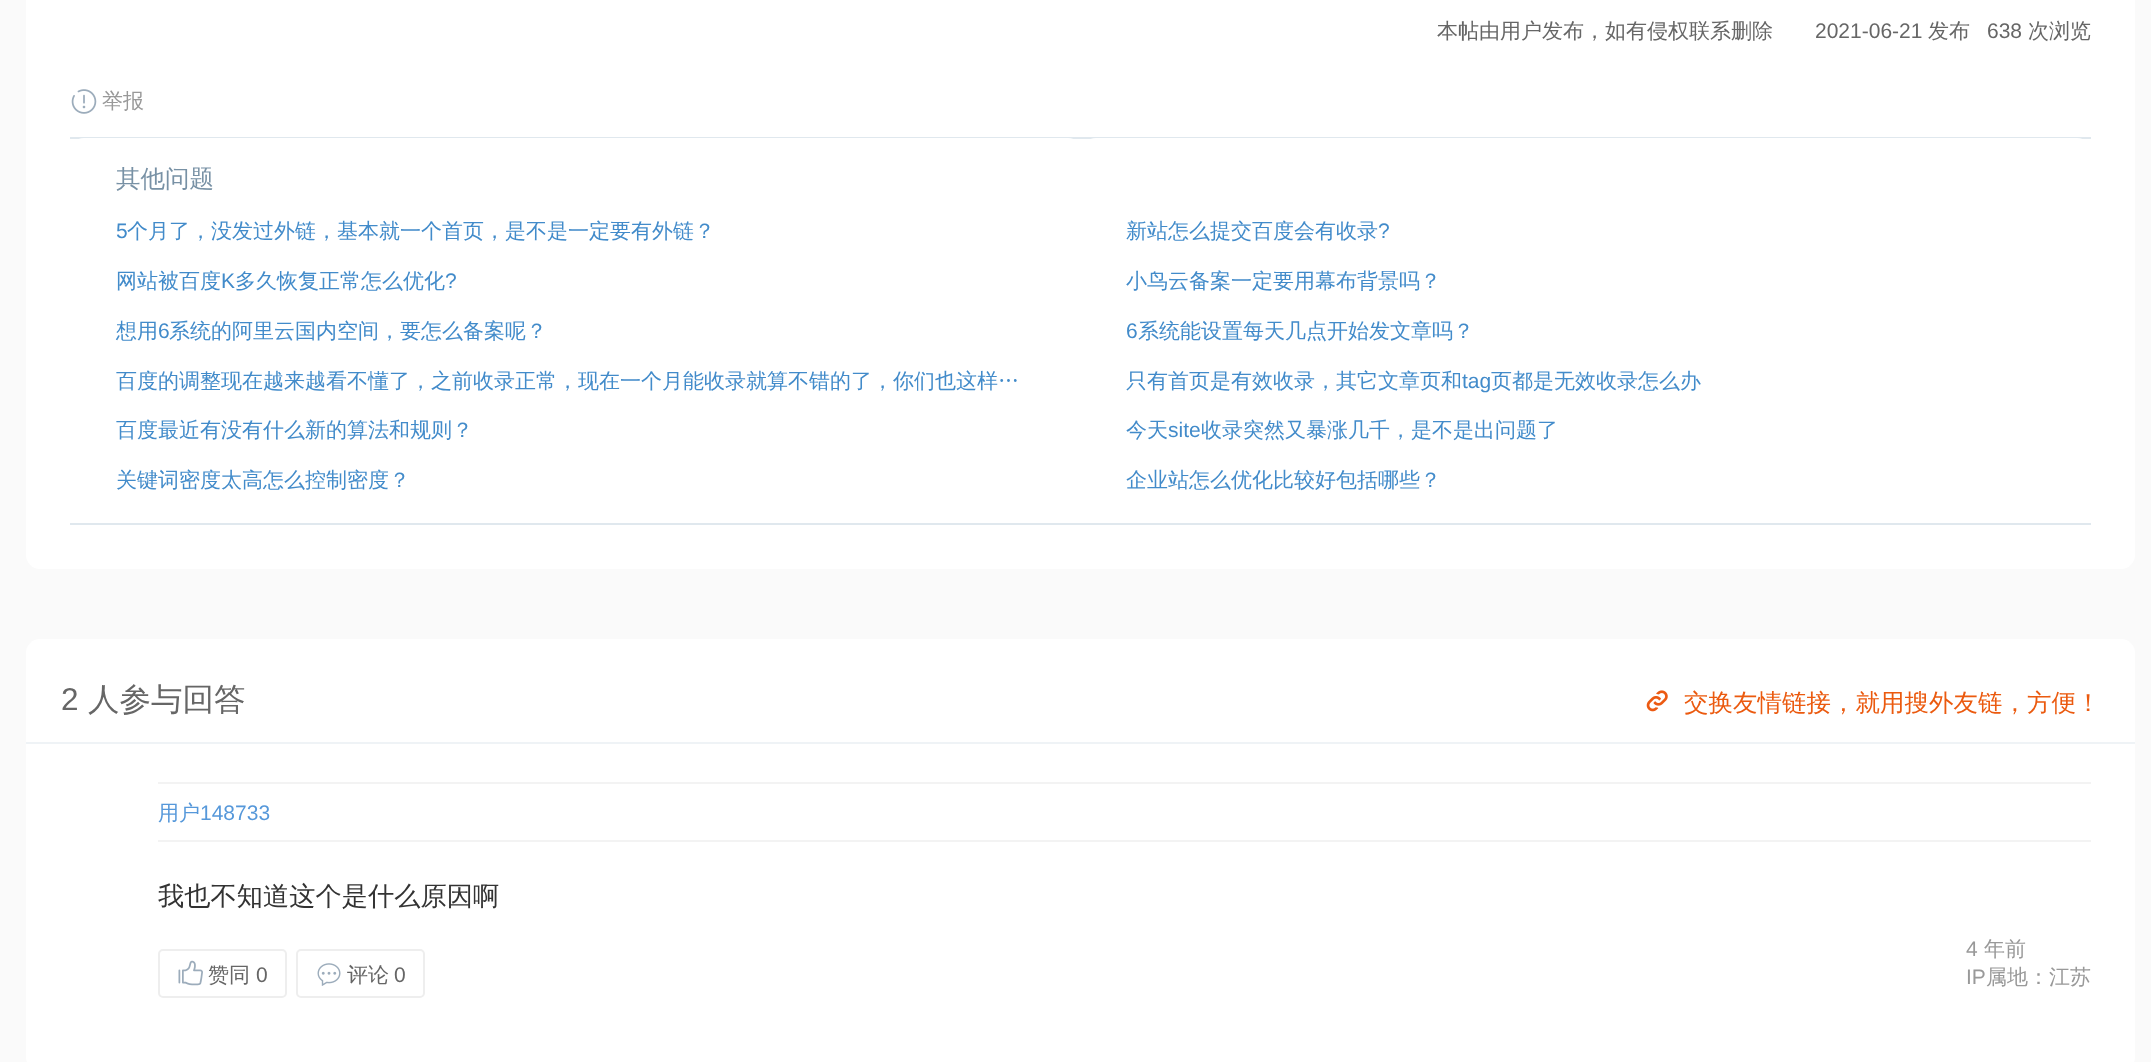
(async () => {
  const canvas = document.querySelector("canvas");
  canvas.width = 2151;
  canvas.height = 1062;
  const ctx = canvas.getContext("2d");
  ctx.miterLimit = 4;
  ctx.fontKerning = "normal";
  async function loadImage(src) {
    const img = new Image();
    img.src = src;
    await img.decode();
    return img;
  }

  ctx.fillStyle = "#fafafa";
  ctx.fillRect(0, 0, 2151, 1062);
  ctx.fillStyle = "#ffffff";
  ctx.beginPath();
  ctx.roundRect(26, -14, 2109, 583, 14);
  ctx.fill();
  ctx.drawImage(await loadImage("img/1.png"), 71, 89, 26, 25);
  ctx.fillStyle = "#e0e8ee";
  ctx.fillRect(70, 137, 2021, 2);
  ctx.fillRect(70, 523, 2021, 2);
  ctx.fillStyle = "#ffffff";
  ctx.beginPath();
  ctx.roundRect(70, 138, 1012, 385, 14);
  ctx.fill();
  ctx.beginPath();
  ctx.roundRect(1082, 138, 1009, 385, 14);
  ctx.fill();
  ctx.beginPath();
  ctx.roundRect(26, 639, 2109, 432, 14);
  ctx.fill();
  for (const [x, y, w, h, color] of [
    [26, 742, 2109, 2, "#eff3f6"],
    [158, 782, 1933, 2, "#f3f3f3"],
    [158, 840, 1933, 2, "#f3f3f3"],
  ]) {
    ctx.fillStyle = color;
    ctx.fillRect(x, y, w, h);
  }
  ctx.beginPath();
  ctx.roundRect(159, 950, 127, 47, 4);
  ctx.strokeStyle = "#eeeeee";
  ctx.lineWidth = 2;
  ctx.stroke();
  ctx.drawImage(await loadImage("img/2.png"), 178, 960, 25, 26);
  ctx.beginPath();
  ctx.roundRect(297, 950, 127, 47, 4);
  ctx.stroke();
  ctx.drawImage(await loadImage("img/3.png"), 317, 963, 24, 23);
  ctx.drawImage(await loadImage("img/4.png"), 1646, 690, 22, 22);
  ctx.font = "500 21px WenQuanYi Zen Hei";
  ctx.fillStyle = "#666666";
  ctx.fillText("本帖由用户发布，如有侵权联系删除", 1437, 38);
  ctx.font = "21px Liberation Sans";
  ctx.fillText("2021-06-21", 1815, 38);
  ctx.font = "500 21px WenQuanYi Zen Hei";
  ctx.fillText("发布", 1928, 38);
  ctx.font = "21px Liberation Sans";
  ctx.fillText("638", 1987, 38);
  ctx.font = "500 21px WenQuanYi Zen Hei";
  ctx.fillText("次浏览", 2028, 38);
  ctx.fillStyle = "#999999";
  ctx.fillText("举报", 102, 108);
  ctx.font = "500 24.5px WenQuanYi Zen Hei";
  ctx.fillStyle = "#7891a5";
  ctx.fillText("其他问题", 116, 187);
  ctx.font = "21px Liberation Sans";
  ctx.fillStyle = "#428bca";
  ctx.fillText("5", 116, 238);
  ctx.font = "500 21px WenQuanYi Zen Hei";
  ctx.fillText("个月了，没发过外链，基本就一个首页，是不是一定要有外链？", 127, 238);
  ctx.fillText("网站被百度", 116, 288);
  ctx.font = "21px Liberation Sans";
  ctx.fillText("K", 221, 288);
  ctx.font = "500 21px WenQuanYi Zen Hei";
  ctx.fillText("多久恢复正常怎么优化", 235, 288);
  ctx.font = "21px Liberation Sans";
  ctx.fillText("?", 445, 288);
  ctx.font = "500 21px WenQuanYi Zen Hei";
  ctx.fillText("想用", 116, 338);
  ctx.font = "21px Liberation Sans";
  ctx.fillText("6", 158, 338);
  ctx.font = "500 21px WenQuanYi Zen Hei";
  for (const [text, x, y] of [
    ["系统的阿里云国内空间，要怎么备案呢？", 169, 338],
    ["百度的调整现在越来越看不懂了，之前收录正常，现在一个月能收录就算不错的了，你们也这样…", 116, 388],
    ["百度最近有没有什么新的算法和规则？", 116, 437],
    ["关键词密度太高怎么控制密度？", 116, 487],
    ["新站怎么提交百度会有收录", 1126, 238],
  ]) {
    ctx.fillText(text, x, y);
  }
  ctx.font = "21px Liberation Sans";
  ctx.fillText("?", 1378, 238);
  ctx.font = "500 21px WenQuanYi Zen Hei";
  ctx.fillText("小鸟云备案一定要用幕布背景吗？", 1126, 288);
  ctx.font = "21px Liberation Sans";
  ctx.fillText("6", 1126, 338);
  ctx.font = "500 21px WenQuanYi Zen Hei";
  ctx.fillText("系统能设置每天几点开始发文章吗？", 1138, 338);
  ctx.fillText("只有首页是有效收录，其它文章页和", 1126, 388);
  ctx.font = "21px Liberation Sans";
  ctx.fillText("tag", 1462, 388);
  ctx.font = "500 21px WenQuanYi Zen Hei";
  ctx.fillText("页都是无效收录怎么办", 1491, 388);
  ctx.fillText("今天", 1126, 437);
  ctx.font = "21px Liberation Sans";
  ctx.fillText("site", 1168, 437);
  ctx.font = "500 21px WenQuanYi Zen Hei";
  ctx.fillText("收录突然又暴涨几千，是不是出问题了", 1201, 437);
  ctx.fillText("企业站怎么优化比较好包括哪些？", 1126, 487);
  ctx.font = "31.5px Liberation Sans";
  ctx.fillStyle = "#666666";
  ctx.fillText("2", 61, 710);
  ctx.font = "500 31.5px WenQuanYi Zen Hei";
  ctx.fillText("人参与回答", 88, 710);
  ctx.font = "500 21px WenQuanYi Zen Hei";
  ctx.fillStyle = "#5698da";
  ctx.fillText("用户", 158, 820);
  ctx.font = "21px Liberation Sans";
  ctx.fillText("148733", 200, 820);
  ctx.font = "500 26.25px WenQuanYi Zen Hei";
  ctx.fillStyle = "#333333";
  ctx.fillText("我也不知道这个是什么原因啊", 158, 905);
  ctx.font = "500 21px WenQuanYi Zen Hei";
  ctx.fillStyle = "#666666";
  ctx.fillText("赞同", 208, 982);
  ctx.font = "21px Liberation Sans";
  ctx.fillText("0", 256, 982);
  ctx.font = "500 21px WenQuanYi Zen Hei";
  ctx.fillText("评论", 347, 982);
  ctx.font = "21px Liberation Sans";
  ctx.fillText("0", 394, 982);
  ctx.fillStyle = "#999999";
  ctx.fillText("4", 1966, 956);
  ctx.font = "500 21px WenQuanYi Zen Hei";
  ctx.fillText("年前", 1984, 956);
  ctx.font = "21px Liberation Sans";
  ctx.fillText("IP", 1966, 984);
  ctx.font = "500 21px WenQuanYi Zen Hei";
  ctx.fillText("属地：江苏", 1986, 984);
  ctx.font = "500 24.5px WenQuanYi Zen Hei";
  ctx.fillStyle = "#eb5a0f";
  ctx.fillText("交换友情链接，就用搜外友链，方便！", 1684, 711);
})();
